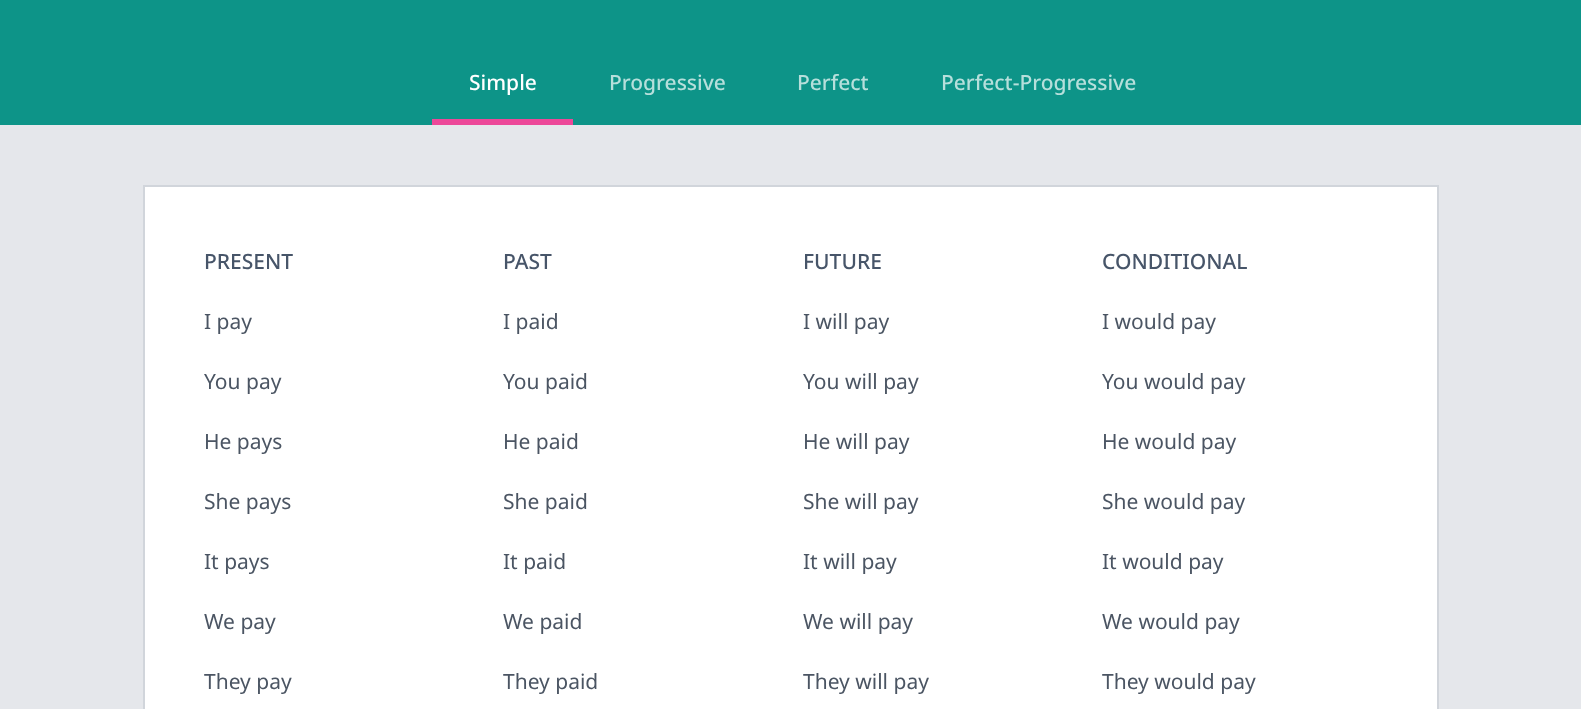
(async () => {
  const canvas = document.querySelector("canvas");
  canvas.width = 1581;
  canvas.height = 709;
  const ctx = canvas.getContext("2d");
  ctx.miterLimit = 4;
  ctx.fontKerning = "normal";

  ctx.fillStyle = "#e5e7eb";
  ctx.fillRect(0, 0, 1581, 709);
  ctx.fillStyle = "#0d9488";
  ctx.fillRect(0, 0, 1581, 125);
  ctx.fillStyle = "#ec4899";
  ctx.fillRect(432, 119, 141, 6);
  ctx.fillStyle = "#ffffff";
  ctx.beginPath();
  ctx.rect(144, 186, 1294, 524);
  ctx.fill();
  ctx.strokeStyle = "#d1d5db";
  ctx.lineWidth = 2;
  ctx.stroke();
  ctx.font = "500 21px Noto Sans";
  ctx.fillText("Simple", 469, 90);
  ctx.fillStyle = "#b6dfdb";
  for (const [text, x, y] of [
    ["Progressive", 609, 90],
    ["Perfect", 797, 90],
    ["Perfect-Progressive", 941, 90],
  ]) {
    ctx.fillText(text, x, y);
  }
  ctx.fillStyle = "#475569";
  ctx.fillText("PRESENT", 204, 269);
  ctx.font = "21px Noto Sans";
  ctx.fillStyle = "#4b5563";
  for (const [text, x, y] of [
    ["I pay", 204, 329],
    ["You pay", 204, 389],
    ["He pays", 204, 449],
    ["She pays", 204, 509],
    ["It pays", 204, 569],
    ["We pay", 204, 629],
    ["They pay", 204, 689],
  ]) {
    ctx.fillText(text, x, y);
  }
  ctx.font = "500 21px Noto Sans";
  ctx.fillStyle = "#475569";
  ctx.fillText("PAST", 503, 269);
  ctx.font = "21px Noto Sans";
  ctx.fillStyle = "#4b5563";
  for (const [text, x, y] of [
    ["I paid", 503, 329],
    ["You paid", 503, 389],
    ["He paid", 503, 449],
    ["She paid", 503, 509],
    ["It paid", 503, 569],
    ["We paid", 503, 629],
    ["They paid", 503, 689],
  ]) {
    ctx.fillText(text, x, y);
  }
  ctx.font = "500 21px Noto Sans";
  ctx.fillStyle = "#475569";
  ctx.fillText("FUTURE", 803, 269);
  ctx.font = "21px Noto Sans";
  ctx.fillStyle = "#4b5563";
  for (const [text, x, y] of [
    ["I will pay", 803, 329],
    ["You will pay", 803, 389],
    ["He will pay", 803, 449],
    ["She will pay", 803, 509],
    ["It will pay", 803, 569],
    ["We will pay", 803, 629],
    ["They will pay", 803, 689],
  ]) {
    ctx.fillText(text, x, y);
  }
  ctx.font = "500 21px Noto Sans";
  ctx.fillStyle = "#475569";
  ctx.fillText("CONDITIONAL", 1102, 269);
  ctx.font = "21px Noto Sans";
  ctx.fillStyle = "#4b5563";
  for (const [text, x, y] of [
    ["I would pay", 1102, 329],
    ["You would pay", 1102, 389],
    ["He would pay", 1102, 449],
    ["She would pay", 1102, 509],
    ["It would pay", 1102, 569],
    ["We would pay", 1102, 629],
    ["They would pay", 1102, 689],
  ]) {
    ctx.fillText(text, x, y);
  }
})();
